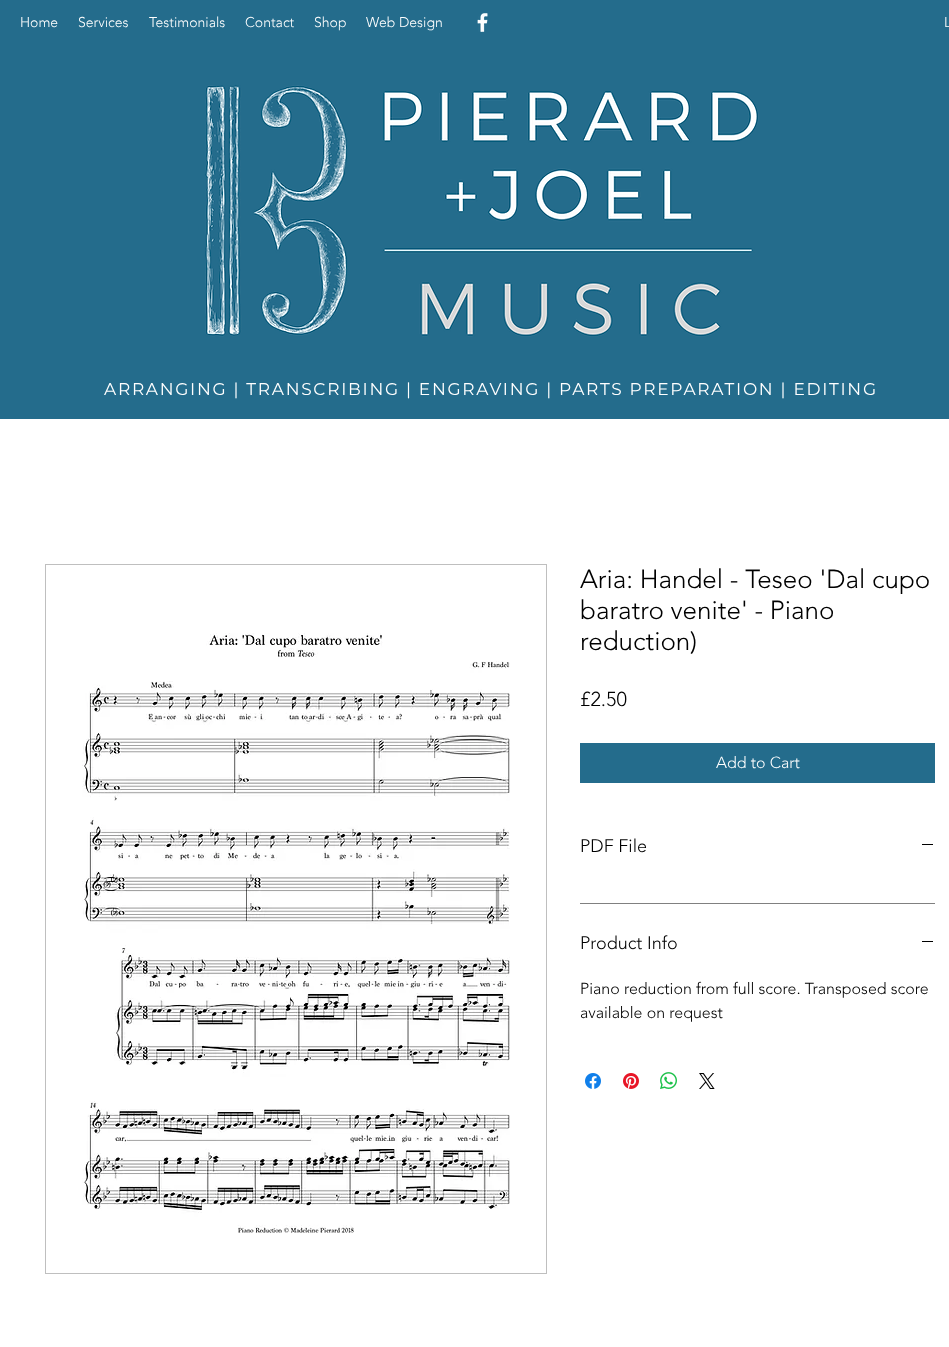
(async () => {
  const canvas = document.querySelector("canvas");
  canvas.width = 949;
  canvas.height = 1347;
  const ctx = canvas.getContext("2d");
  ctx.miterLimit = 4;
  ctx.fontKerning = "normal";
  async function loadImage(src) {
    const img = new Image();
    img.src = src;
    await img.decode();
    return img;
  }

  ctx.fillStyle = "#ffffff";
  ctx.fillRect(0, 0, 949, 1347);
  ctx.fillStyle = "#246c8c";
  ctx.fillRect(0, 0, 949, 419);
  ctx.drawImage(await loadImage("img/1.png"), 477, 13, 11, 19);
  ctx.drawImage(await loadImage("img/2.png"), 205, 85, 554, 252);
  ctx.strokeStyle = "#bfbfbf";
  ctx.strokeRect(45.5, 564.5, 501, 709);
  ctx.drawImage(await loadImage("img/3.png"), 82, 633, 428, 600);
  for (const [x, y, w, h, color] of [
    [580, 743, 355, 40, "#246c8c"],
    [580, 903, 355, 1, "#808080"],
    [922, 844, 11, 1, "#000000"],
    [922, 941, 11, 1, "#000000"],
  ]) {
    ctx.fillStyle = color;
    ctx.fillRect(x, y, w, h);
  }
  ctx.drawImage(await loadImage("img/4.png"), 585, 1073, 16, 16);
  ctx.drawImage(await loadImage("img/5.png"), 623, 1073, 16, 16);
  ctx.drawImage(await loadImage("img/6.png"), 660, 1072, 17, 17);
  ctx.drawImage(await loadImage("img/7.png"), 699, 1073, 16, 16);
  ctx.font = "300 14px 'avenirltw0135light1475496'";
  ctx.fillStyle = "#ffffff";
  for (const [text, x, y] of [
    ["Home", 20, 27],
    ["Services", 78, 27],
    ["Testimonials", 149, 27],
    ["Contact", 245, 27],
    ["Shop", 314, 27],
    ["Web Design", 366, 27],
    ["L", 944, 27],
  ]) {
    ctx.fillText(text, x, y);
  }
  ctx.letterSpacing = "1.7px";
  ctx.font = "17px Montserrat";
  ctx.fillText("ARRANGING | TRANSCRIBING | ENGRAVING | PARTS PREPARATION | EDITING", 104, 395);
  ctx.letterSpacing = "0px";
  ctx.font = "300 26px 'avenirltw0135light1475496'";
  ctx.fillStyle = "#000000";
  for (const [text, x, y] of [
    ["Aria: Handel - Teseo 'Dal cupo", 580, 588],
    ["baratro venite' - Piano", 580, 619],
    ["reduction)", 580, 650],
  ]) {
    ctx.fillText(text, x, y);
  }
  ctx.font = "300 20px 'avenirltw0135light1475496'";
  ctx.fillText("£2.50", 580, 706);
  ctx.font = "300 16px 'avenirltw0135light1475496'";
  ctx.fillStyle = "#ffffff";
  ctx.fillText("Add to Cart", 716, 768);
  ctx.font = "300 18px 'avenirltw0135light1475496'";
  ctx.fillStyle = "#000000";
  ctx.fillText("PDF File", 580, 852);
  ctx.fillText("Product Info", 580, 949);
  ctx.font = "300 16px 'avenirltw0135light1475496'";
  ctx.fillText("Piano reduction from full score. Transposed score", 580, 994);
  ctx.fillText("available on request", 580, 1018);
})();
